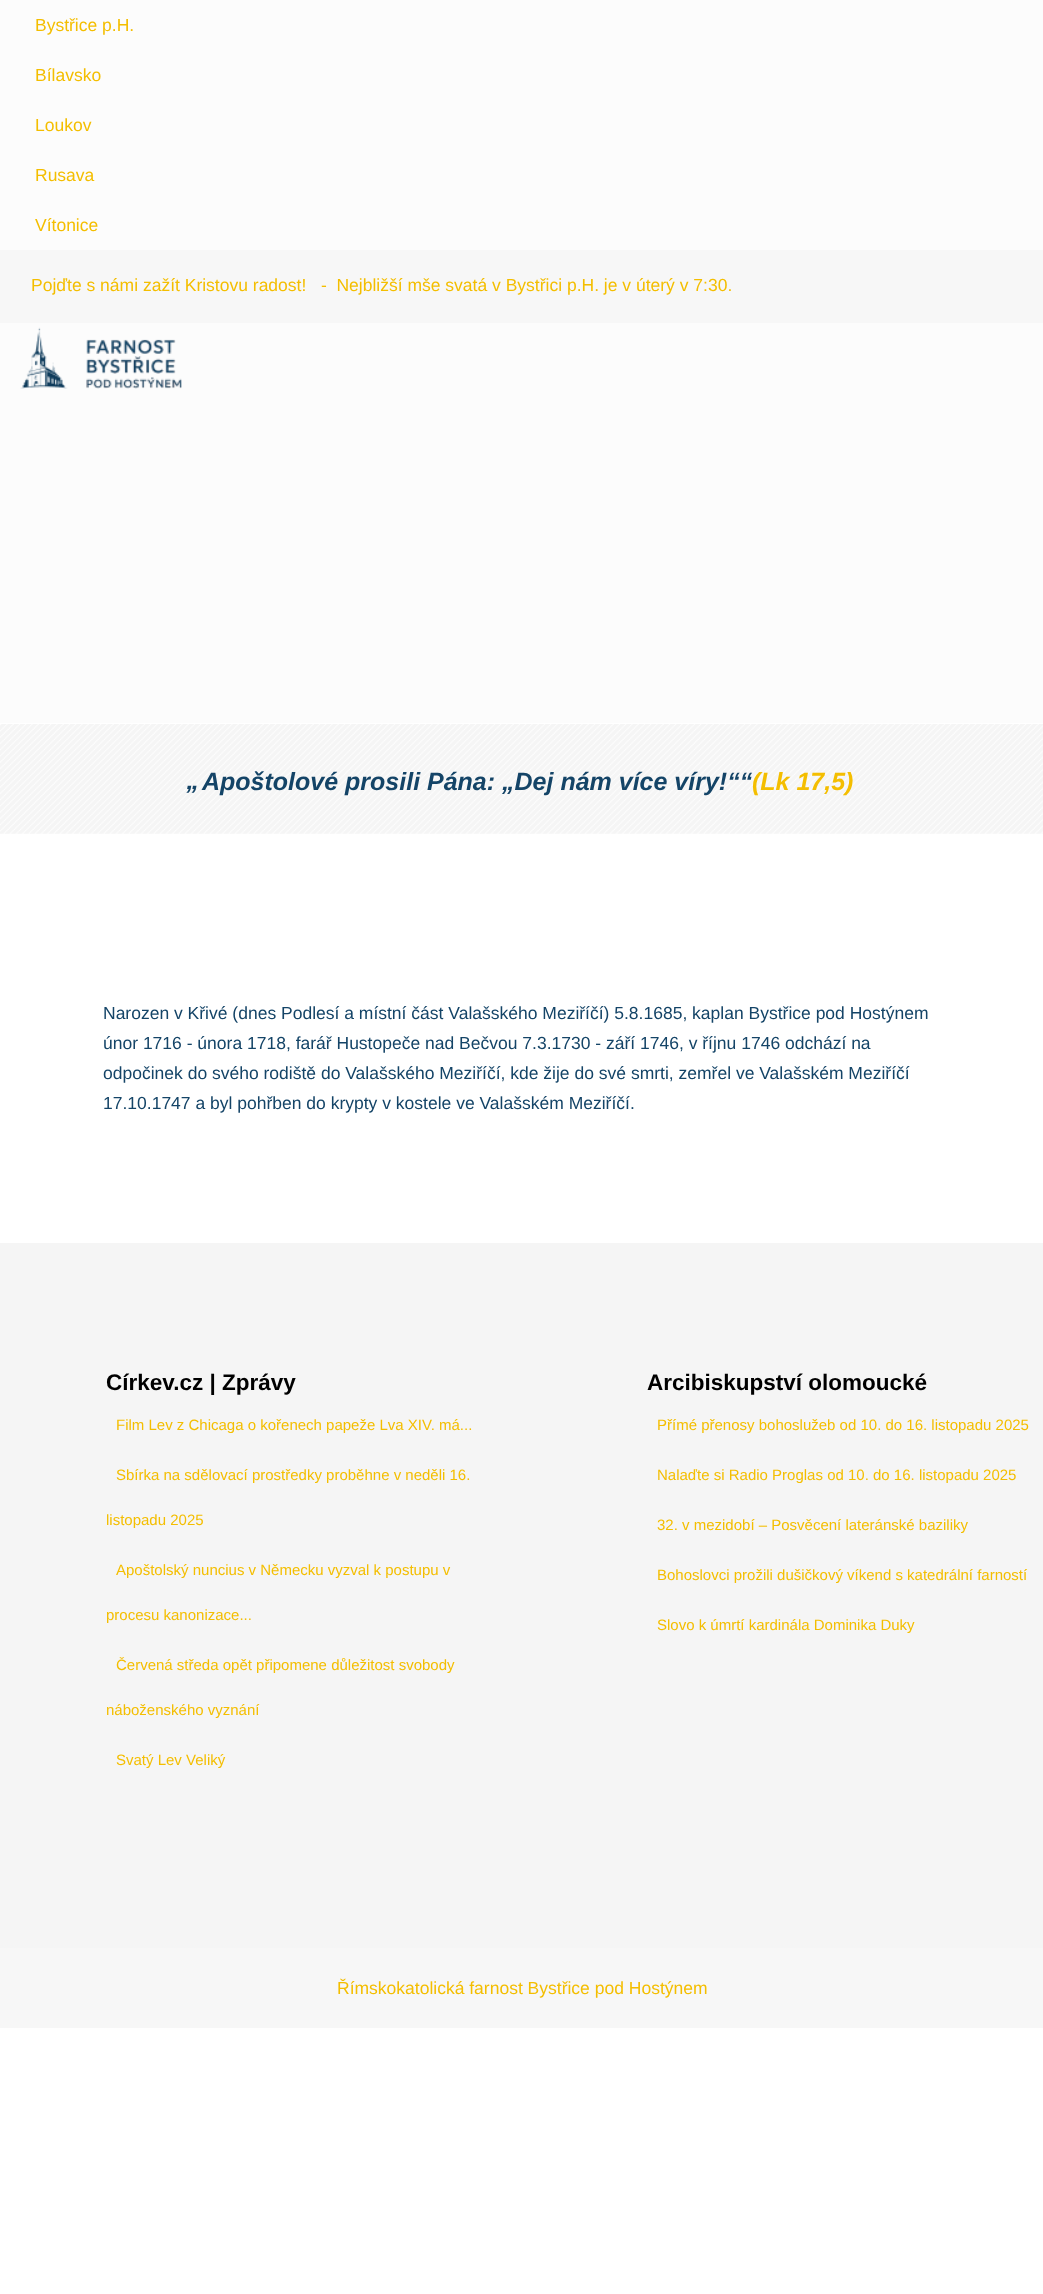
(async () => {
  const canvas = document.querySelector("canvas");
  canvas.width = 1043;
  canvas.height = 2294;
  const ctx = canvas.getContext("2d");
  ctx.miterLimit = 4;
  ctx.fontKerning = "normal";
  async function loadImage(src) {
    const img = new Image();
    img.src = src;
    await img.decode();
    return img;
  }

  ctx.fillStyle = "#ffffff";
  ctx.fillRect(0, 0, 1043, 2294);
  for (const [x, y, w, h, color] of [
    [0, 0, 1043, 250, "#fcfcfc"],
    [0, 250, 1043, 73, "#f7f7f7"],
    [0, 323, 1043, 400, "#fcfcfc"],
  ]) {
    ctx.fillStyle = color;
    ctx.fillRect(x, y, w, h);
  }
  ctx.drawImage(await loadImage("img/1.png"), 20, 327, 162, 62);
  ctx.drawImage(await loadImage("img/2.png"), 0, 724, 1043, 110);
  ctx.fillStyle = "#f5f5f5";
  ctx.fillRect(0, 1243, 1043, 705);
  ctx.fillStyle = "#f7f7f7";
  ctx.fillRect(0, 1948, 1043, 80);
  ctx.font = "17.5px Liberation Sans";
  ctx.fillStyle = "#f4be00";
  for (const [text, x, y] of [
    ["Bystřice p.H.", 35, 31],
    ["Bílavsko", 35, 81],
    ["Loukov", 35, 131],
    ["Rusava", 35, 181],
    ["Vítonice", 35, 231],
    ["Pojďte s námi zažít Kristovu radost!   -  Nejbližší mše svatá v Bystřici p.H. je v úterý v 7:30.", 31, 291],
  ]) {
    ctx.fillText(text, x, y);
  }
  ctx.font = "italic bold 25px Liberation Sans";
  ctx.fillStyle = "#144467";
  ctx.fillText("”", 184, 803);
  ctx.fillText("Apoštolové prosili Pána: „Dej nám více víry!““", 202, 790);
  ctx.fillStyle = "#f4be00";
  ctx.fillText("(Lk 17,5)", 752, 790);
  ctx.font = "17.5px Liberation Sans";
  ctx.fillStyle = "#144467";
  for (const [text, x, y] of [
    ["Narozen v Křivé (dnes Podlesí a místní část Valašského Meziříčí) 5.8.1685, kaplan Bystřice pod Hostýnem", 103, 1019],
    ["únor 1716 - února 1718, farář Hustopeče nad Bečvou 7.3.1730 - září 1746, v říjnu 1746 odchází na", 103, 1049],
    ["odpočinek do svého rodiště do Valašského Meziříčí, kde žije do své smrti, zemřel ve Valašském Meziříčí", 103, 1079],
    ["17.10.1747 a byl pohřben do krypty v kostele ve Valašském Meziříčí.", 103, 1109],
  ]) {
    ctx.fillText(text, x, y);
  }
  ctx.font = "bold 22.5px Liberation Sans";
  ctx.fillStyle = "#000000";
  ctx.fillText("Církev.cz | Zprávy", 106, 1390);
  ctx.font = "15px Liberation Sans";
  ctx.fillStyle = "#f4be00";
  for (const [text, x, y] of [
    ["Film Lev z Chicaga o kořenech papeže Lva XIV. má...", 116, 1430],
    ["Sbírka na sdělovací prostředky proběhne v neděli 16.", 116, 1480],
    ["listopadu 2025", 106, 1525],
    ["Apoštolský nuncius v Německu vyzval k postupu v", 116, 1575],
    ["procesu kanonizace...", 106, 1620],
    ["Červená středa opět připomene důležitost svobody", 116, 1670],
    ["náboženského vyznání", 106, 1715],
    ["Svatý Lev Veliký", 116, 1765],
  ]) {
    ctx.fillText(text, x, y);
  }
  ctx.font = "bold 22.5px Liberation Sans";
  ctx.fillStyle = "#000000";
  ctx.fillText("Arcibiskupství olomoucké", 647, 1390);
  ctx.font = "15px Liberation Sans";
  ctx.fillStyle = "#f4be00";
  for (const [text, x, y] of [
    ["Přímé přenosy bohoslužeb od 10. do 16. listopadu 2025", 657, 1430],
    ["Nalaďte si Radio Proglas od 10. do 16. listopadu 2025", 657, 1480],
    ["32. v mezidobí – Posvěcení lateránské baziliky", 657, 1530],
    ["Bohoslovci prožili dušičkový víkend s katedrální farností", 657, 1580],
    ["Slovo k úmrtí kardinála Dominika Duky", 657, 1630],
  ]) {
    ctx.fillText(text, x, y);
  }
  ctx.font = "17.5px Liberation Sans";
  ctx.fillText("Římskokatolická farnost Bystřice pod Hostýnem", 337, 1994);
})();
